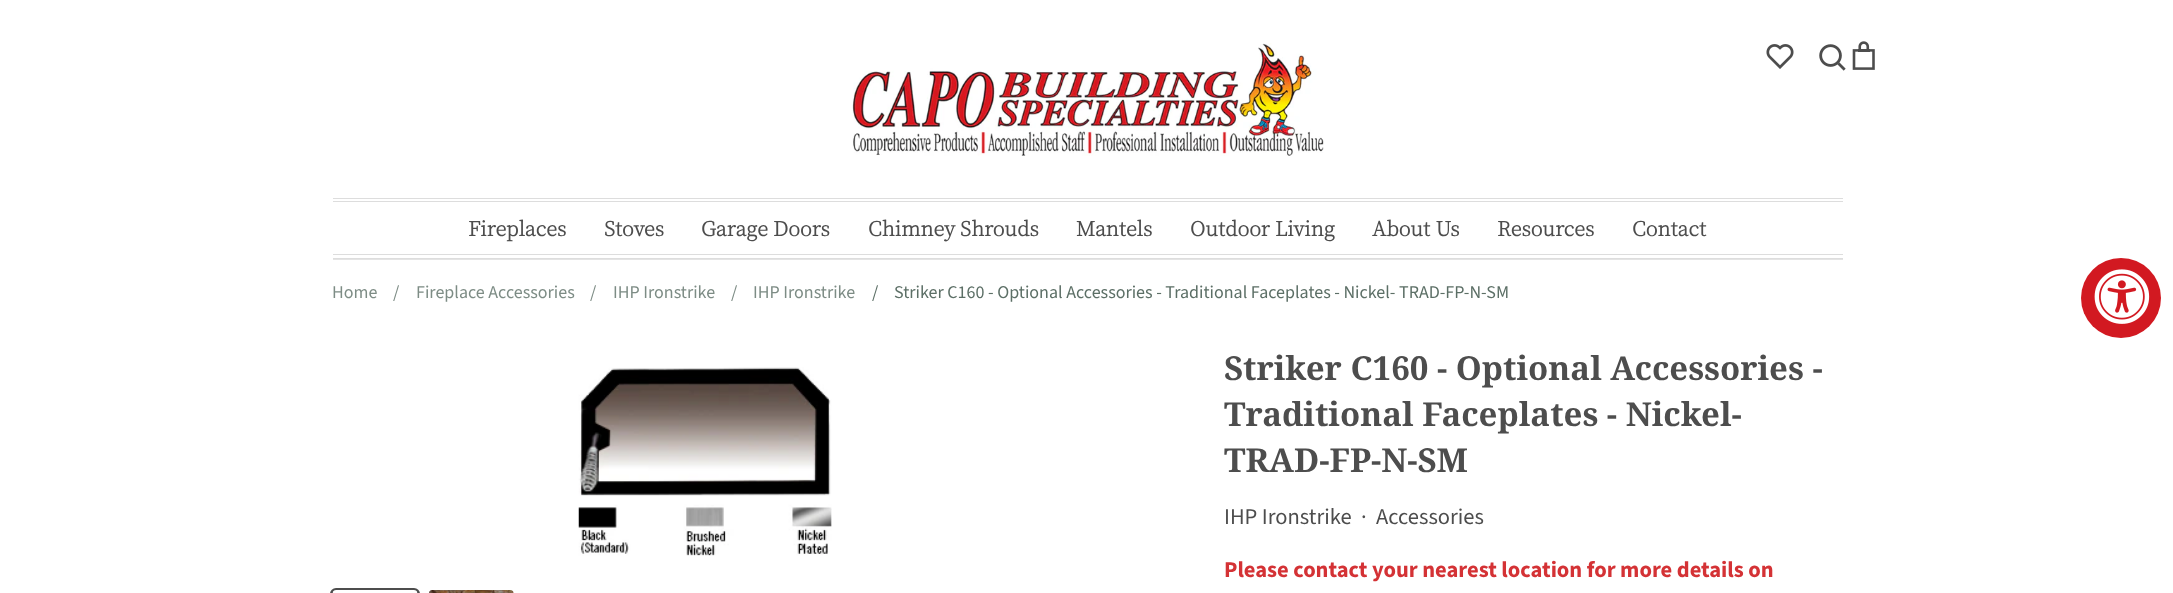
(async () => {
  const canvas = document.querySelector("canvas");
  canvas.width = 2173;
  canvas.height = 593;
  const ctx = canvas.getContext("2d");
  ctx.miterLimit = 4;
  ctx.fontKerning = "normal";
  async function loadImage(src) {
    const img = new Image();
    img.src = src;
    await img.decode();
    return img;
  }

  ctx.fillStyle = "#ffffff";
  ctx.fillRect(0, 0, 2173, 593);
  ctx.drawImage(await loadImage("img/1.png"), 852, 43, 472, 113);
  ctx.drawImage(await loadImage("img/2.png"), 1766, 44, 28, 25);
  ctx.drawImage(await loadImage("img/3.png"), 1819, 44, 27, 27);
  ctx.drawImage(await loadImage("img/4.png"), 1852, 41, 23, 29);
  for (const [x, y, w, h, color] of [
    [333, 259, 1510, 1, "#e4e4e4"],
    [333, 198, 1510, 1, "#dddddd"],
    [333, 258, 1510, 1, "#dddddd"],
    [333, 201, 1510, 1, "#dddddd"],
    [333, 254, 1510, 1, "#dddddd"],
  ]) {
    ctx.fillStyle = color;
    ctx.fillRect(x, y, w, h);
  }
  ctx.fillStyle = "#d21921";
  ctx.beginPath();
  ctx.arc(2121, 298, 40, 0, Math.PI * 2);
  ctx.fill();
  ctx.drawImage(await loadImage("img/5.png"), 2094, 269, 56, 55);
  ctx.drawImage(await loadImage("img/6.png"), 578, 367, 254, 189);
  ctx.beginPath();
  ctx.roundRect(331.5, 589.5, 87, 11, 4.5);
  ctx.strokeStyle = "#4d4d4d";
  ctx.lineWidth = 3;
  ctx.stroke();
  ctx.drawImage(await loadImage("img/7.png"), 332, 590, 86, 3);
  ctx.drawImage(await loadImage("img/8.png"), 429, 590, 85, 3);
  ctx.font = "bold 20px Noto Serif TC";
  ctx.fillStyle = "#4d4d4d";
  for (const [text, x, y] of [
    ["Fireplaces", 468, 236],
    ["Stoves", 604, 236],
    ["Garage Doors", 701, 236],
    ["Chimney Shrouds", 868, 236],
    ["Mantels", 1076, 236],
    ["Outdoor Living", 1190, 236],
    ["About Us", 1372, 236],
    ["Resources", 1497, 236],
    ["Contact", 1632, 236],
  ]) {
    ctx.fillText(text, x, y);
  }
  ctx.font = "18px Source Sans Pro";
  ctx.fillStyle = "#7d8c85";
  for (const [text, x, y] of [
    ["Home", 332, 298],
    ["/", 393, 298],
    ["Fireplace Accessories", 416, 298],
    ["/", 590, 298],
    ["IHP Ironstrike", 613, 298],
    ["/", 731, 298],
    ["IHP Ironstrike", 753, 298],
  ]) {
    ctx.fillText(text, x, y);
  }
  ctx.fillStyle = "#5c6f66";
  ctx.fillText("/", 872, 298);
  ctx.fillText("Striker C160 - Optional Accessories - Traditional Faceplates - Nickel- TRAD-FP-N-SM", 894, 298);
  ctx.font = "bold 33px Noto Serif";
  ctx.fillStyle = "#4d4d4d";
  for (const [text, x, y] of [
    ["Striker C160 - Optional Accessories -", 1224, 380],
    ["Traditional Faceplates - Nickel-", 1224, 426],
    ["TRAD-FP-N-SM", 1224, 472],
  ]) {
    ctx.fillText(text, x, y);
  }
  ctx.font = "22.5px Source Sans Pro";
  for (const [text, x, y] of [
    ["IHP Ironstrike", 1224, 524],
    ["·", 1361, 524],
    ["Accessories", 1376, 524],
  ]) {
    ctx.fillText(text, x, y);
  }
  ctx.font = "bold 22.5px Source Sans Pro";
  ctx.fillStyle = "#d43235";
  ctx.fillText("Please contact your nearest location for more details on", 1224, 577);
})();
